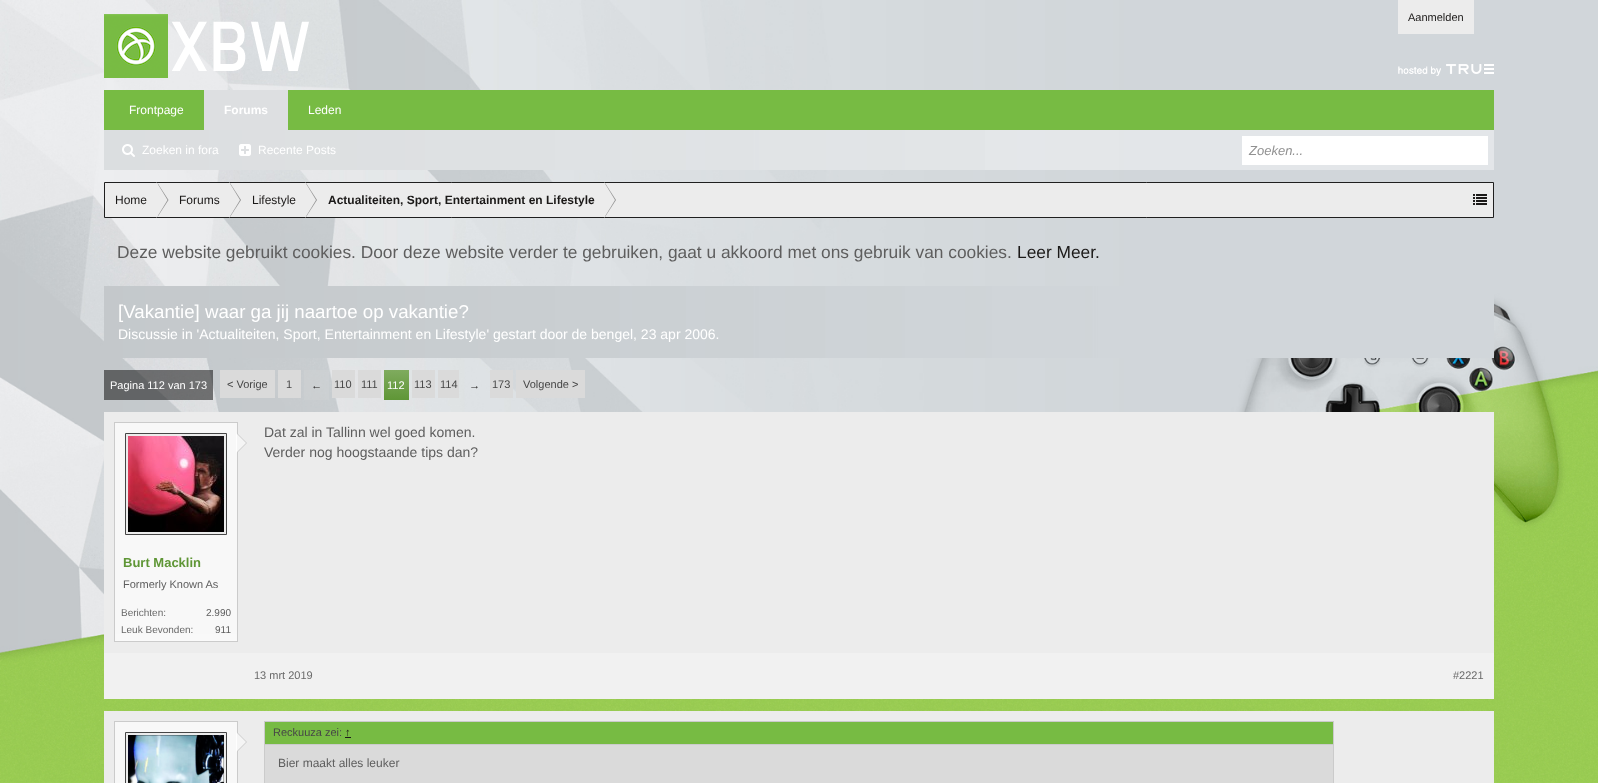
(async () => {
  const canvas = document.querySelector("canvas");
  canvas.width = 1598;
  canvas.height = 783;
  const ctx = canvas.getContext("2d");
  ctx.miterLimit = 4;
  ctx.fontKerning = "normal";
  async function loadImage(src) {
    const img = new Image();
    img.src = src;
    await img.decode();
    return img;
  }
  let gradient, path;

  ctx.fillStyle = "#ffffff";
  ctx.fillRect(0, 0, 1598, 783);
  ctx.drawImage(await loadImage("img/12.png"), 0, 782, 1598, 1);
  ctx.drawImage(await loadImage("img/1.png"), 0, 0, 1598, 783);
  ctx.fillStyle = "#ececec";
  ctx.fillRect(1398, 0, 76, 34);
  ctx.drawImage(await loadImage("img/2.png"), 104, 14, 205, 64);
  ctx.drawImage(await loadImage("img/3.png"), 1398, 64, 96, 12);
  ctx.drawImage(await loadImage("img/4.png"), 104, 130, 881, 40);
  for (const [x, y, w, h, color] of [
    [104, 90, 1390, 40, "#77bb43"],
    [204, 90, 84, 40, "#dddfe1"],
    [104, 130, 1390, 40, "rgba(255, 255, 255, 0.4)"],
  ]) {
    ctx.fillStyle = color;
    ctx.fillRect(x, y, w, h);
  }
  ctx.drawImage(await loadImage("img/5.png"), 122, 144, 13, 13);
  ctx.drawImage(await loadImage("img/6.png"), 239, 144, 12, 12);
  ctx.fillStyle = "#ffffff";
  ctx.fillRect(1242, 136, 246, 29);
  ctx.fillStyle = "#ececec";
  ctx.beginPath();
  ctx.rect(104.5, 182.5, 1389, 35);
  ctx.fill();
  ctx.strokeStyle = "#1f1f1f";
  ctx.stroke();
  ctx.fillStyle = "#939393";
  path = new Path2D("M157.5 217V183L168.5 200Z");
  ctx.fill(path);
  ctx.fillStyle = "#ececec";
  path = new Path2D("M156.5 218V182L167.5 200Z");
  ctx.fill(path);
  ctx.fillStyle = "#939393";
  path = new Path2D("M230 217V183L241 200Z");
  ctx.fill(path);
  ctx.fillStyle = "#ececec";
  path = new Path2D("M229 218V182L240 200Z");
  ctx.fill(path);
  ctx.fillStyle = "#939393";
  path = new Path2D("M306 217V183L317 200Z");
  ctx.fill(path);
  ctx.fillStyle = "#ececec";
  path = new Path2D("M305 218V182L316 200Z");
  ctx.fill(path);
  ctx.fillStyle = "#939393";
  path = new Path2D("M605 217V183L616 200Z");
  ctx.fill(path);
  ctx.fillStyle = "#ececec";
  path = new Path2D("M604 218V182L615 200Z");
  ctx.fill(path);
  ctx.drawImage(await loadImage("img/7.png"), 1473, 194, 14, 11);
  ctx.drawImage(await loadImage("img/8.png"), 104, 286, 1390, 72);
  for (const [x, y, w, h, color] of [
    [104, 370, 109, 30, "rgba(0, 0, 0, 0.5)"],
    [220, 370, 55, 28, "#dadada"],
    [278, 370, 23, 28, "#dadada"],
    [304, 370, 25, 30, "rgba(220, 220, 220, 0.2)"],
    [332, 370, 23, 28, "#dadada"],
    [358, 370, 23, 28, "#dadada"],
  ]) {
    ctx.fillStyle = color;
    ctx.fillRect(x, y, w, h);
  }
  gradient = ctx.createLinearGradient(397, 370, 397, 400);
  gradient.addColorStop(0, "#7fab5e");
  gradient.addColorStop(1, "#5f9636");
  ctx.fillStyle = gradient;
  ctx.fillRect(384, 370, 25, 30);
  for (const [x, y, w, h, color] of [
    [412, 370, 23, 28, "#dadada"],
    [438, 370, 21, 28, "#dadada"],
    [490, 370, 23, 28, "#dadada"],
    [516, 370, 69, 28, "#dadada"],
    [104, 412, 1390, 241, "#ececec"],
    [115, 599, 122, 42, "#dadada"],
  ]) {
    ctx.fillStyle = color;
    ctx.fillRect(x, y, w, h);
  }
  ctx.drawImage(await loadImage("img/9.png"), 115, 634, 122, 7);
  ctx.strokeStyle = "#cbcbcb";
  ctx.strokeRect(114.5, 422.5, 123, 219);
  ctx.fillStyle = "#f8f8f8";
  ctx.fillRect(115, 423, 122, 176);
  ctx.fillStyle = "#ececec";
  ctx.beginPath();
  ctx.rect(125.5, 433.5, 101, 101);
  ctx.fill();
  ctx.strokeStyle = "#464646";
  ctx.stroke();
  ctx.drawImage(await loadImage("img/10.png"), 128, 436, 96, 96);
  ctx.fillStyle = "#cbcbcb";
  path = new Path2D("M237 453V433L247 443Z");
  ctx.fill(path);
  ctx.fillStyle = "rgba(255, 255, 255, 0.8)";
  path = new Path2D("M236 453V433L246 443Z");
  ctx.fill(path);
  for (const [x, y, w, h, color] of [
    [115, 599, 122, 42, "rgba(255, 255, 255, 0.8)"],
    [104, 653, 1390, 46, "#f1f1f1"],
    [104, 711, 1390, 72, "#ececec"],
  ]) {
    ctx.fillStyle = color;
    ctx.fillRect(x, y, w, h);
  }
  ctx.strokeStyle = "#cbcbcb";
  ctx.strokeRect(114.5, 721.5, 123, 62);
  ctx.fillStyle = "#f8f8f8";
  ctx.fillRect(115, 722, 122, 61);
  ctx.fillStyle = "#ececec";
  ctx.beginPath();
  ctx.rect(125.5, 732.5, 101, 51);
  ctx.fill();
  ctx.strokeStyle = "#464646";
  ctx.stroke();
  ctx.drawImage(await loadImage("img/11.png"), 128, 735, 96, 48);
  ctx.fillStyle = "#cbcbcb";
  path = new Path2D("M237 752V732L247 742Z");
  ctx.fill(path);
  ctx.fillStyle = "rgba(255, 255, 255, 0.8)";
  path = new Path2D("M236 752V732L246 742Z");
  ctx.fill(path);
  ctx.strokeStyle = "#cbcbcb";
  ctx.strokeRect(264.5, 721.5, 1069, 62);
  for (const [x, y, w, h, color] of [
    [265, 722, 1068, 22, "#77bb43"],
    [265, 744, 1068, 1, "#cbcbcb"],
    [345, 737, 6, 1, "#1b1918"],
    [265, 745, 1068, 38, "#dadada"],
  ]) {
    ctx.fillStyle = color;
    ctx.fillRect(x, y, w, h);
  }
  ctx.font = "11px Liberation Sans";
  ctx.fillStyle = "#1b1918";
  ctx.fillText("Aanmelden", 1408, 21);
  ctx.font = "12px Liberation Sans";
  ctx.fillStyle = "#ffffff";
  ctx.fillText("Frontpage", 129, 114);
  ctx.font = "bold 12px Liberation Sans";
  ctx.fillText("Forums", 224, 114);
  ctx.font = "12px Liberation Sans";
  for (const [text, x, y] of [
    ["Zoeken in fora", 142, 154],
    ["Recente Posts", 258, 154],
    ["Leden", 308, 114],
  ]) {
    ctx.fillText(text, x, y);
  }
  ctx.font = "italic 13px Liberation Sans";
  ctx.fillStyle = "#919191";
  ctx.fillText("Zoeken...", 1249, 155);
  ctx.font = "12px Liberation Sans";
  ctx.fillStyle = "#1b1918";
  for (const [text, x, y] of [
    ["Home", 115, 204],
    ["Forums", 179, 204],
    ["Lifestyle", 252, 204],
  ]) {
    ctx.fillText(text, x, y);
  }
  ctx.font = "bold 12px Liberation Sans";
  ctx.fillText("Actualiteiten, Sport, Entertainment en Lifestyle", 328, 204);
  ctx.font = "17.33px Liberation Sans";
  ctx.fillStyle = "#5e5e5e";
  ctx.fillText("Deze website gebruikt cookies. Door deze website verder te gebruiken, gaat u akkoord met ons gebruik van cookies.", 117, 258);
  ctx.fillStyle = "#1b1918";
  ctx.fillText("Leer Meer.", 1017, 258);
  ctx.font = "18.7px Liberation Sans";
  ctx.fillStyle = "#ffffff";
  ctx.fillText("[Vakantie] waar ga jij naartoe op vakantie?", 118, 318);
  ctx.font = "14px Liberation Sans";
  ctx.fillText("Discussie in 'Actualiteiten, Sport, Entertainment en Lifestyle' gestart door de bengel, 23 apr 2006.", 118, 339);
  ctx.font = "11px Liberation Sans";
  ctx.fillText("Pagina 112 van 173", 110, 389);
  ctx.fillStyle = "#474747";
  ctx.fillText("< Vorige", 227, 388);
  ctx.fillText("1", 286, 388);
  ctx.font = "bold 11px Liberation Sans";
  ctx.fillStyle = "#1b1918";
  ctx.fillText("←", 311, 389);
  ctx.font = "11px Liberation Sans";
  ctx.fillStyle = "#474747";
  ctx.fillText("110", 334, 388);
  ctx.fillText("111", 361, 388);
  ctx.fillStyle = "#ffffff";
  ctx.fillText("112", 387, 389);
  ctx.fillStyle = "#474747";
  ctx.fillText("113", 414, 388);
  ctx.fillText("114", 440, 388);
  ctx.fillStyle = "#1b1918";
  ctx.fillText("→", 469, 389);
  ctx.fillStyle = "#474747";
  ctx.fillText("173", 492, 388);
  ctx.fillText("Volgende >", 523, 388);
  ctx.font = "bold 13px Liberation Sans";
  ctx.fillStyle = "#5f9636";
  ctx.fillText("Burt Macklin", 123, 567);
  ctx.font = "11px Liberation Sans";
  ctx.fillStyle = "#5e5e5e";
  ctx.fillText("Formerly Known As", 123, 588);
  ctx.font = "10px Liberation Sans";
  ctx.fillStyle = "#696969";
  ctx.fillText("Berichten:", 121, 616);
  ctx.fillStyle = "#5e5e5e";
  ctx.fillText("2.990", 206, 616);
  ctx.fillStyle = "#696969";
  ctx.fillText("Leuk Bevonden:", 121, 633);
  ctx.fillStyle = "#5e5e5e";
  ctx.fillText("911", 215, 633);
  ctx.font = "14px Liberation Sans";
  ctx.fillText("Dat zal in Tallinn wel goed komen.", 264, 437);
  ctx.fillText("Verder nog hoogstaande tips dan?", 264, 457);
  ctx.font = "11px Liberation Sans";
  ctx.fillStyle = "#696969";
  ctx.fillText("13 mrt 2019", 254, 679);
  ctx.fillText("#2221", 1453, 679);
  ctx.fillStyle = "#474747";
  ctx.fillText("Reckuuza zei:", 273, 736);
  ctx.fillStyle = "#1b1918";
  ctx.fillText("↑", 345, 736);
  ctx.font = "12px Liberation Sans";
  ctx.fillStyle = "#5e5e5e";
  ctx.fillText("Bier maakt alles leuker", 278, 767);
})();
